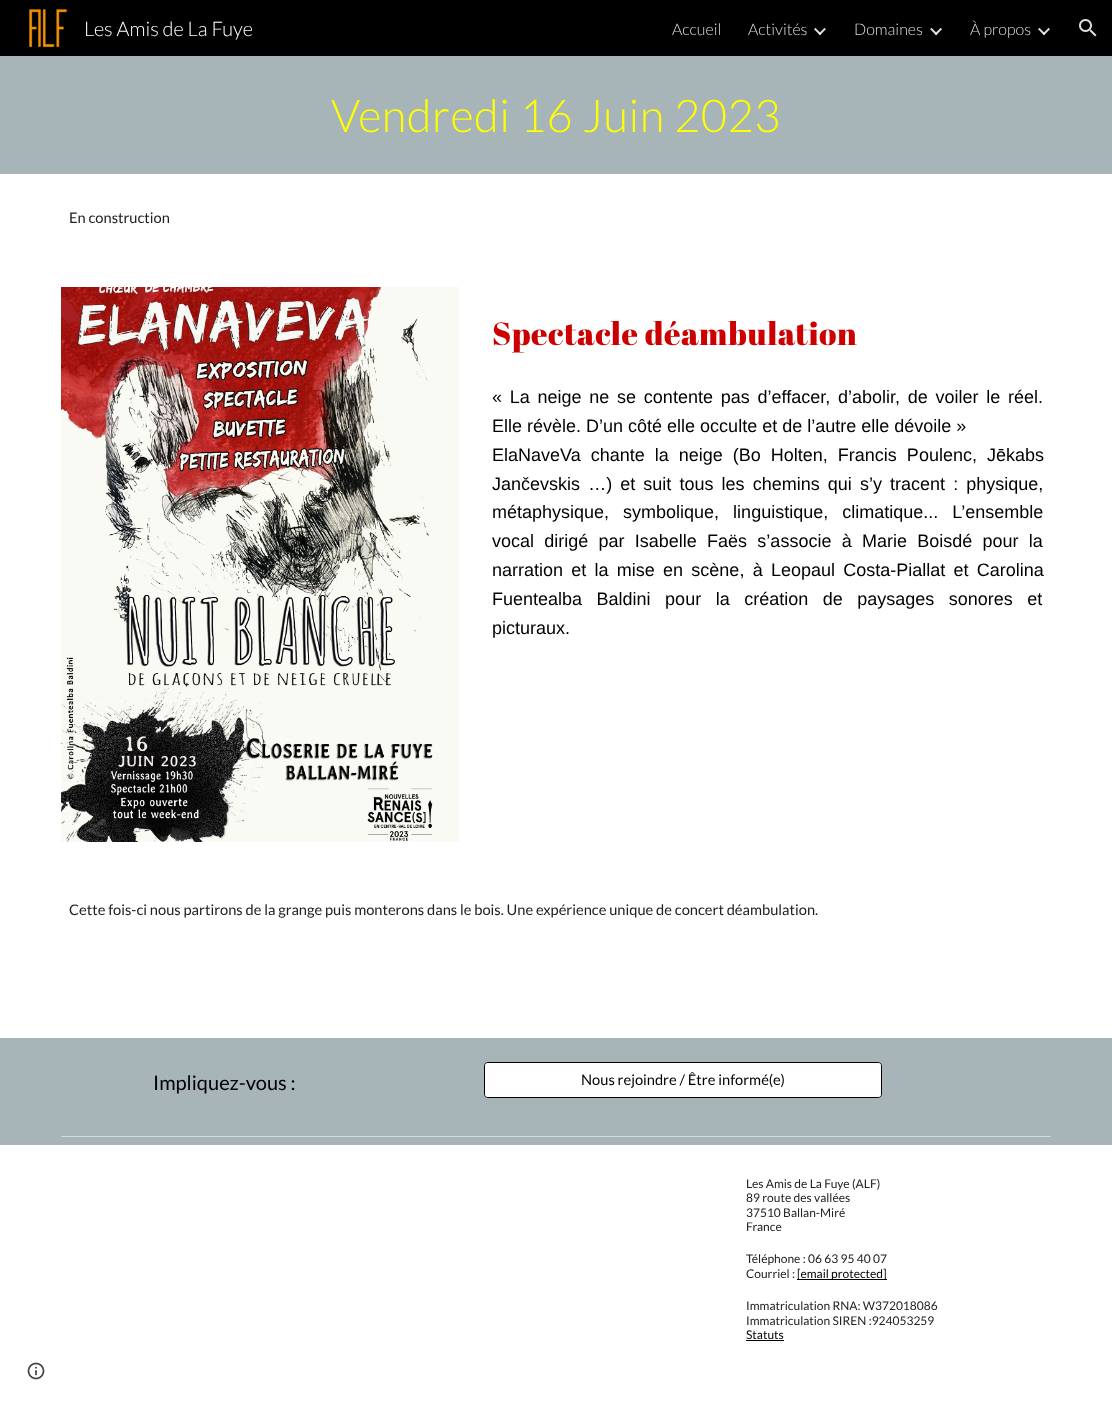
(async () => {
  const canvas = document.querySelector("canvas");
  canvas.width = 1112;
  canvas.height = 1405;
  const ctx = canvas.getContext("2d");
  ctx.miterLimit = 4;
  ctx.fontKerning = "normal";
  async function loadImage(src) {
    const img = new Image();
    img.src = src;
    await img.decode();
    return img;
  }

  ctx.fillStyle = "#ffffff";
  ctx.fillRect(0, 0, 1112, 1405);
  ctx.fillStyle = "#000000";
  ctx.fillRect(0, 0, 1112, 56);
  ctx.drawImage(await loadImage("img/1.png"), 29, 9, 38, 38);
  ctx.drawImage(await loadImage("img/2.png"), 814, 27, 12, 9);
  ctx.drawImage(await loadImage("img/3.png"), 930, 27, 12, 9);
  ctx.drawImage(await loadImage("img/4.png"), 1038, 27, 12, 8);
  ctx.drawImage(await loadImage("img/5.png"), 1079, 19, 18, 18);
  ctx.fillStyle = "#a7b5b9";
  ctx.fillRect(0, 56, 1112, 118);
  ctx.drawImage(await loadImage("img/6.png"), 61, 287, 398, 555);
  ctx.fillRect(0, 1038, 1112, 107);
  ctx.beginPath();
  ctx.roundRect(484.5, 1062.5, 397, 35, 3.5);
  ctx.strokeStyle = "#000000";
  ctx.stroke();
  ctx.fillStyle = "#ffffff";
  ctx.beginPath();
  ctx.roundRect(485, 1063, 396, 34, 3);
  ctx.fill();
  for (const [x, y, w, h, color] of [
    [61, 1136, 990, 1, "#d3dadd"],
    [797, 1279, 90, 1, "#000000"],
    [746, 1340, 38, 1, "#000000"],
  ]) {
    ctx.fillStyle = color;
    ctx.fillRect(x, y, w, h);
  }
  ctx.drawImage(await loadImage("img/7.png"), 27, 1362, 18, 18);
  ctx.font = "300 20px Lato";
  ctx.fillStyle = "#ffffff";
  ctx.fillText("Les Amis de La Fuye", 84, 36);
  ctx.font = "300 16px Lato";
  ctx.fillStyle = "#dedede";
  for (const [text, x, y] of [
    ["Accueil", 672, 35],
    ["Activités", 748, 35],
    ["Domaines", 854, 35],
    ["À propos", 970, 35],
  ]) {
    ctx.fillText(text, x, y);
  }
  ctx.letterSpacing = "0.5px";
  ctx.font = "300 45.25px Lato";
  ctx.fillStyle = "#ffff00";
  ctx.fillText("Vendredi 16 Juin 2023", 331, 132);
  ctx.letterSpacing = "0px";
  ctx.font = "14.67px Lato";
  ctx.fillStyle = "#212121";
  ctx.fillText("En construction", 69, 223);
  ctx.letterSpacing = "0.5px";
  ctx.font = "32px Abril Fatface";
  ctx.fillStyle = "#cc0000";
  ctx.fillText("Spectacle déambulation", 492, 345);
  ctx.letterSpacing = "0px";
  ctx.wordSpacing = "2.75px";
  ctx.font = "18px Liberation Sans";
  ctx.fillStyle = "#000000";
  ctx.fillText("« La neige ne se contente pas d’effacer, d’abolir, de voiler le réel.", 492, 403);
  ctx.wordSpacing = "0px";
  ctx.fillText("Elle révèle. D’un côté elle occulte et de l’autre elle dévoile »", 492, 432);
  ctx.wordSpacing = "5px";
  ctx.fillText("ElaNaveVa chante la neige (Bo Holten, Francis Poulenc, Jēkabs", 492, 461);
  ctx.wordSpacing = "3.1px";
  ctx.fillText("Jančevskis …) et suit tous les chemins qui s’y tracent : physique,", 492, 490);
  ctx.wordSpacing = "9px";
  ctx.fillText("métaphysique, symbolique, linguistique, climatique... L’ensemble", 492, 518);
  ctx.wordSpacing = "5.25px";
  ctx.fillText("vocal dirigé par Isabelle Faës s’associe à Marie Boisdé pour la", 492, 547);
  ctx.wordSpacing = "3.25px";
  ctx.fillText("narration et la mise en scène, à Leopaul Costa-Piallat et Carolina", 492, 576);
  ctx.wordSpacing = "9.5px";
  ctx.fillText("Fuentealba Baldini pour la création de paysages sonores et", 492, 605);
  ctx.wordSpacing = "0px";
  ctx.fillText("picturaux.", 492, 634);
  ctx.font = "14.67px Lato";
  ctx.fillStyle = "#212121";
  ctx.fillText("Cette fois-ci nous partirons de la grange puis monterons dans le bois. Une expérience unique de concert déambulation.", 69, 915);
  ctx.font = "20px Lato";
  ctx.fillStyle = "#000000";
  ctx.fillText("Impliquez-vous :", 153, 1090);
  ctx.font = "14.67px Lato";
  ctx.fillText("Nous rejoindre / Être informé(e)", 581, 1085);
  ctx.font = "12px Lato";
  ctx.fillStyle = "#212121";
  for (const [text, x, y] of [
    ["Les Amis de La Fuye (ALF)", 746, 1188],
    ["89 route des vallées", 746, 1202],
    ["37510 Ballan-Miré", 746, 1217],
    ["France", 746, 1231],
    ["Téléphone : 06 63 95 40 07", 746, 1263],
    ["Courriel :", 746, 1278],
  ]) {
    ctx.fillText(text, x, y);
  }
  ctx.fillStyle = "#000000";
  ctx.fillText("[email protected]", 797, 1278);
  ctx.fillStyle = "#212121";
  ctx.fillText("Immatriculation RNA: W372018086", 746, 1310);
  ctx.fillText("Immatriculation SIREN :924053259", 746, 1325);
  ctx.fillStyle = "#000000";
  ctx.fillText("Statuts", 746, 1339);
})();
